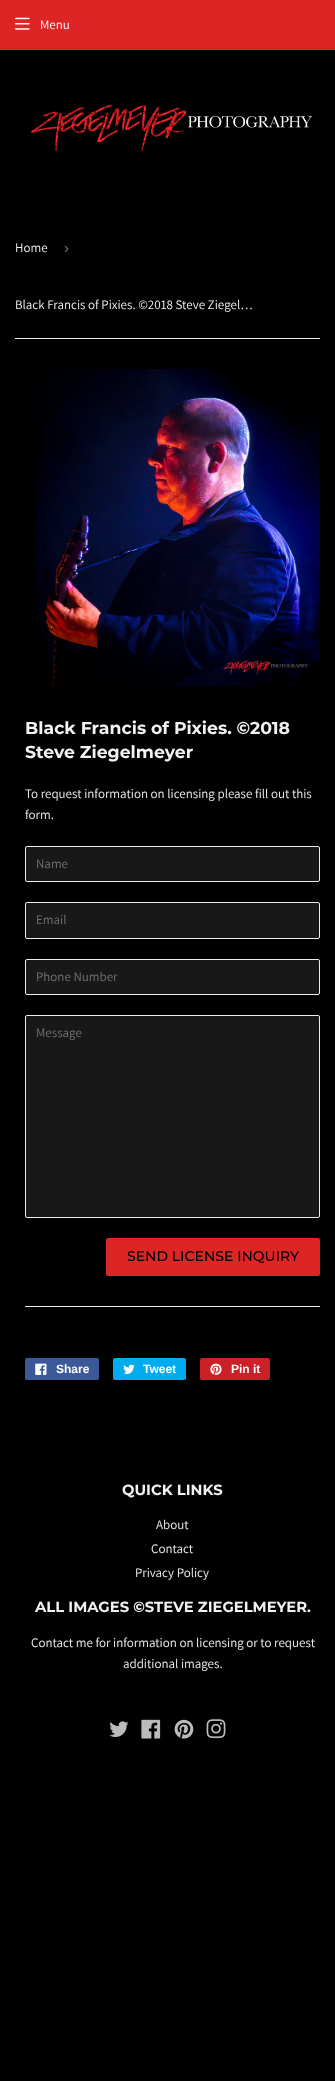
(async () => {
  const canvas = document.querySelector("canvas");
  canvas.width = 335;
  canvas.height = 2081;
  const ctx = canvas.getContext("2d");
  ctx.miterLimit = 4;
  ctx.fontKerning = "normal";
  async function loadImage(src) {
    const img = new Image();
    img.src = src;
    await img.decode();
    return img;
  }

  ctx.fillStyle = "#000000";
  ctx.fillRect(0, 0, 335, 2081);
  ctx.fillStyle = "#dd2525";
  ctx.fillRect(0, 0, 335, 50);
  ctx.drawImage(await loadImage("img/1.png"), 15, 17, 15, 13);
  ctx.drawImage(await loadImage("img/2.png"), 31, 104, 282, 50);
  ctx.fillStyle = "#ececec";
  ctx.fillRect(15, 338, 305, 1);
  ctx.drawImage(await loadImage("img/3.png"), 35, 369, 285, 317);
  ctx.fillStyle = "#181818";
  ctx.beginPath();
  ctx.roundRect(25.5, 846.5, 294, 35, 1.5);
  ctx.fill();
  ctx.strokeStyle = "#ececec";
  ctx.stroke();
  ctx.beginPath();
  ctx.roundRect(25.5, 902.5, 294, 36, 1.5);
  ctx.fill();
  ctx.stroke();
  ctx.beginPath();
  ctx.roundRect(25.5, 959.5, 294, 35, 1.5);
  ctx.fill();
  ctx.stroke();
  ctx.beginPath();
  ctx.roundRect(25.5, 1015.5, 294, 202, 1.5);
  ctx.fill();
  ctx.stroke();
  ctx.fillStyle = "#dd2525";
  ctx.beginPath();
  ctx.roundRect(106, 1238, 214, 38, 2);
  ctx.fill();
  ctx.fillStyle = "#ececec";
  ctx.fillRect(25, 1306, 295, 1);
  ctx.fillStyle = "#3b5998";
  ctx.beginPath();
  ctx.roundRect(25, 1358, 74, 22, 2);
  ctx.fill();
  ctx.drawImage(await loadImage("img/4.png"), 35, 1363, 12, 12);
  ctx.fillStyle = "#00aced";
  ctx.beginPath();
  ctx.roundRect(113, 1358, 73, 22, 2);
  ctx.fill();
  ctx.drawImage(await loadImage("img/5.png"), 123, 1364, 12, 10);
  ctx.fillStyle = "#cb2027";
  ctx.beginPath();
  ctx.roundRect(200, 1358, 70, 22, 2);
  ctx.fill();
  ctx.drawImage(await loadImage("img/6.png"), 210, 1363, 12, 12);
  ctx.drawImage(await loadImage("img/7.png"), 109, 1721, 20, 16);
  ctx.drawImage(await loadImage("img/8.png"), 141, 1719, 20, 20);
  ctx.drawImage(await loadImage("img/9.png"), 174, 1719, 20, 20);
  ctx.drawImage(await loadImage("img/10.png"), 206, 1719, 20, 20);
  ctx.font = "13px Assistant";
  ctx.fillStyle = "#ffffff";
  ctx.fillText("Menu", 40, 29);
  ctx.fillStyle = "#f2f2f2";
  ctx.fillText("Home", 15, 252);
  ctx.font = "15px Liberation Sans";
  ctx.fillStyle = "#757575";
  ctx.fillText("›", 64, 253);
  ctx.font = "13px Assistant";
  ctx.fillStyle = "#f2f2f2";
  ctx.fillText("Black Francis of Pixies. ©2018 Steve Ziegel…", 15, 309);
  ctx.font = "bold 17.3px Montserrat";
  ctx.fillText("Black Francis of Pixies. ©2018", 25, 734);
  ctx.fillText("Steve Ziegelmeyer", 25, 758);
  ctx.font = "13px Assistant";
  ctx.fillText("To request information on licensing please fill out this", 25, 798);
  ctx.fillText("form.", 25, 819);
  ctx.fillStyle = "#757575";
  for (const [text, x, y] of [
    ["Name", 36, 868],
    ["Email", 36, 924],
    ["Phone Number", 36, 981],
    ["Message", 36, 1037],
  ]) {
    ctx.fillText(text, x, y);
  }
  ctx.font = "500 14px Montserrat";
  ctx.fillStyle = "#000000";
  ctx.fillText("SEND LICENSE INQUIRY", 127, 1261);
  ctx.font = "bold 12px Liberation Sans";
  ctx.fillStyle = "#ffffff";
  for (const [text, x, y] of [
    ["Share", 56, 1373],
    ["Tweet", 143, 1373],
    ["Pin it", 231, 1373],
  ]) {
    ctx.fillText(text, x, y);
  }
  ctx.font = "bold 14.75px Montserrat";
  ctx.fillStyle = "#f2f2f2";
  ctx.fillText("QUICK LINKS", 122, 1495);
  ctx.font = "13px Assistant";
  for (const [text, x, y] of [
    ["About", 156, 1529],
    ["Contact", 151, 1553],
    ["Privacy Policy", 135, 1577],
  ]) {
    ctx.fillText(text, x, y);
  }
  ctx.font = "bold 14.75px Montserrat";
  ctx.fillText("ALL IMAGES ©STEVE ZIEGELMEYER.", 35, 1612);
  ctx.font = "13px Assistant";
  ctx.fillText("Contact me for information on licensing or to request", 31, 1647);
  ctx.fillText("additional images.", 123, 1668);
})();
